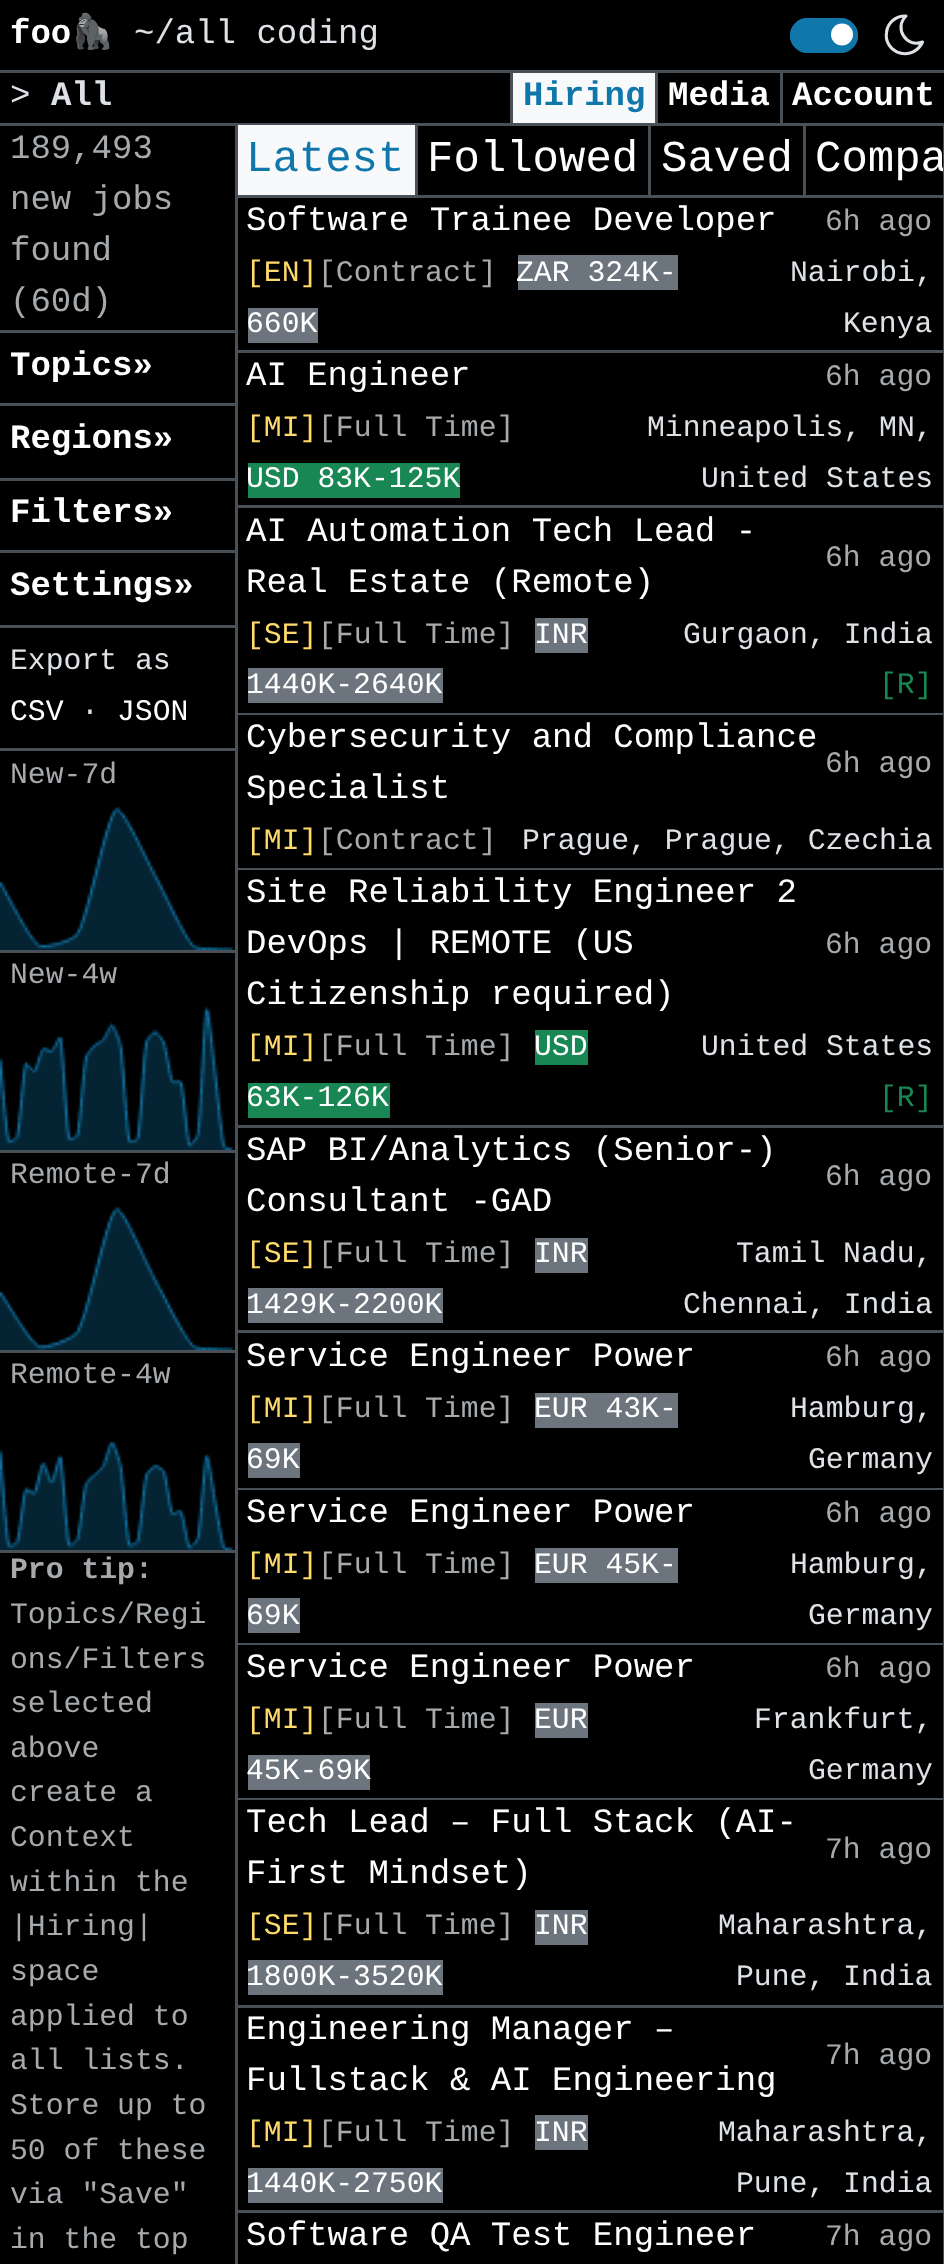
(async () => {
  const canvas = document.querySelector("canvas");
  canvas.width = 944;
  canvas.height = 2264;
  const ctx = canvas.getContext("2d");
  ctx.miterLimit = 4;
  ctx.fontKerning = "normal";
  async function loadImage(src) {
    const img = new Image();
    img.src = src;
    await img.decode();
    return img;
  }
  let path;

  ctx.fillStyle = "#000000";
  ctx.fillRect(0, 0, 944, 2264);
  ctx.fillStyle = "#495057";
  ctx.fillRect(0, 70, 944, 3);
  ctx.fillStyle = "#1077aa";
  ctx.beginPath();
  ctx.roundRect(790, 18, 68, 35, 17.5);
  ctx.fill();
  ctx.fillStyle = "#ffffff";
  ctx.beginPath();
  ctx.arc(842, 34.5, 11, 0, Math.PI * 2);
  ctx.fill();
  ctx.beginPath();
  ctx.roundRect(791.5, 19.5, 65, 32, 16);
  ctx.strokeStyle = "#1077aa";
  ctx.lineWidth = 3;
  ctx.stroke();
  path = new Path2D("M905 16H906C893.5 28 906.5 48.5 922.5 42C918.5 51 909 55.5 900 53C891 50.5 885 42 886.5 32.5C887.5 23 895.5 16 905 16Z");
  ctx.strokeStyle = "#dee2e6";
  ctx.lineWidth = 3.1;
  ctx.lineCap = "round";
  ctx.lineJoin = "round";
  ctx.stroke(path);
  for (const [x, y, w, h, color] of [
    [0, 123, 944, 3, "#495057"],
    [513, 73, 142, 50, "#f8f9fa"],
    [510, 73, 3, 50, "#495057"],
    [655, 73, 3, 50, "#495057"],
    [780, 73, 3, 50, "#495057"],
    [235, 125, 3, 2139, "#495057"],
    [0, 330, 235, 3, "#495057"],
    [0, 403, 235, 3, "#495057"],
    [0, 478, 235, 3, "#495057"],
    [0, 550, 235, 3, "#495057"],
    [0, 625, 235, 3, "#495057"],
    [0, 748, 235, 3, "#495057"],
    [0, 950, 235, 3, "#495057"],
  ]) {
    ctx.fillStyle = color;
    ctx.fillRect(x, y, w, h);
  }
  ctx.drawImage(await loadImage("img/1.png"), 0, 806, 233, 144);
  ctx.fillRect(0, 1150, 235, 3);
  ctx.drawImage(await loadImage("img/2.png"), 0, 1007, 233, 143);
  ctx.fillRect(0, 1350, 235, 3);
  ctx.drawImage(await loadImage("img/3.png"), 0, 1206, 233, 144);
  ctx.fillRect(0, 1550, 235, 3);
  ctx.drawImage(await loadImage("img/4.png"), 0, 1441, 233, 109);
  for (const [x, y, w, h, color] of [
    [943, 125, 1, 2139, "#495057"],
    [238, 195, 705, 3, "#495057"],
    [238, 125, 177, 70, "#f8f9fa"],
    [415, 125, 3, 70, "#495057"],
    [648, 125, 3, 70, "#495057"],
    [803, 125, 3, 70, "#495057"],
    [238, 350, 705, 3, "#495057"],
    [518, 255, 160, 35, "#6c757d"],
    [248, 308, 70, 35, "#6c757d"],
    [238, 505, 705, 3, "#495057"],
    [248, 463, 212, 35, "#198754"],
    [238, 713, 705, 2, "#495057"],
    [535, 618, 53, 35, "#6c757d"],
    [248, 668, 195, 35, "#6c757d"],
    [238, 868, 705, 2, "#495057"],
    [238, 1125, 705, 3, "#495057"],
    [535, 1030, 53, 35, "#198754"],
    [248, 1083, 142, 35, "#198754"],
    [238, 1330, 705, 3, "#495057"],
    [535, 1238, 53, 35, "#6c757d"],
    [248, 1288, 195, 35, "#6c757d"],
    [238, 1488, 705, 2, "#495057"],
    [535, 1393, 143, 35, "#6c757d"],
    [248, 1443, 52, 35, "#6c757d"],
    [238, 1643, 705, 2, "#495057"],
    [535, 1548, 143, 35, "#6c757d"],
    [248, 1598, 52, 35, "#6c757d"],
    [238, 1798, 705, 2, "#495057"],
    [535, 1703, 53, 35, "#6c757d"],
    [248, 1755, 122, 35, "#6c757d"],
    [238, 2005, 705, 3, "#495057"],
    [535, 1910, 53, 35, "#6c757d"],
    [248, 1960, 195, 35, "#6c757d"],
    [238, 2210, 705, 3, "#495057"],
    [535, 2115, 53, 35, "#6c757d"],
    [248, 2168, 195, 35, "#6c757d"],
  ]) {
    ctx.fillStyle = color;
    ctx.fillRect(x, y, w, h);
  }
  ctx.font = "bold 34px Liberation Mono";
  ctx.fillStyle = "#ffffff";
  ctx.fillText("foo", 10, 43);
  ctx.font = "bold 34px Noto Color Emoji";
  ctx.fillText("🦍", 71, 43);
  ctx.font = "34px Liberation Mono";
  ctx.fillStyle = "#dee2e6";
  ctx.fillText("~/all coding", 134, 43);
  ctx.fillText(">", 10, 105);
  ctx.font = "bold 34px Liberation Mono";
  ctx.fillText("All", 51, 105);
  ctx.fillStyle = "#1077aa";
  ctx.fillText("Hiring", 523, 105);
  ctx.fillStyle = "#ffffff";
  ctx.fillText("Media", 668, 105);
  ctx.fillText("Account", 792, 105);
  ctx.font = "34px Liberation Mono";
  ctx.fillStyle = "#a7aaad";
  for (const [text, x, y] of [
    ["189,493", 10, 158],
    ["new jobs", 10, 209],
    ["found", 10, 260],
    ["(60d)", 10, 311],
  ]) {
    ctx.fillText(text, x, y);
  }
  ctx.font = "bold 34px Liberation Mono";
  ctx.fillStyle = "#ffffff";
  for (const [text, x, y] of [
    ["Topics»", 10, 375],
    ["Regions»", 10, 448],
    ["Filters»", 10, 522],
    ["Settings»", 10, 595],
  ]) {
    ctx.fillText(text, x, y);
  }
  ctx.font = "29.75px Liberation Mono";
  ctx.fillStyle = "#dee2e6";
  ctx.fillText("Export as", 10, 669);
  ctx.fillStyle = "#ffffff";
  ctx.fillText("CSV", 10, 720);
  ctx.fillStyle = "#dee2e6";
  ctx.fillText("·", 81, 720);
  ctx.fillStyle = "#ffffff";
  ctx.fillText("JSON", 117, 720);
  ctx.fillStyle = "#a7aaad";
  for (const [text, x, y] of [
    ["New-7d", 10, 783],
    ["New-4w", 10, 983],
    ["Remote-7d", 10, 1183],
    ["Remote-4w", 10, 1383],
  ]) {
    ctx.fillText(text, x, y);
  }
  ctx.font = "bold 29.75px Liberation Mono";
  ctx.fillText("Pro tip:", 10, 1578);
  ctx.font = "29.75px Liberation Mono";
  for (const [text, x, y] of [
    ["Topics/Regi", 10, 1623],
    ["ons/Filters", 10, 1668],
    ["selected", 10, 1712],
    ["above", 10, 1757],
    ["create a", 10, 1801],
    ["Context", 10, 1846],
    ["within the", 10, 1891],
    ["|Hiring|", 10, 1935],
    ["space", 10, 1980],
    ["applied to", 10, 2025],
    ["all lists.", 10, 2069],
    ["Store up to", 10, 2114],
    ["50 of these", 10, 2159],
    ["via \"Save\"", 10, 2203],
    ["in the top", 10, 2248],
  ]) {
    ctx.fillText(text, x, y);
  }
  ctx.font = "44px Liberation Mono";
  ctx.fillStyle = "#1077aa";
  ctx.fillText("Latest", 246, 171);
  ctx.fillStyle = "#ffffff";
  ctx.fillText("Followed", 427, 171);
  ctx.fillText("Saved", 661, 171);
  ctx.save();
  ctx.beginPath();
  ctx.rect(238, 125, 705, 70);
  ctx.clip();
  ctx.fillText("Compa", 815, 171);
  ctx.restore();
  ctx.font = "34px Liberation Mono";
  ctx.fillText("Software Trainee Developer", 246, 230);
  ctx.font = "29.75px Liberation Mono";
  ctx.fillStyle = "#a7aaad";
  ctx.fillText("6h ago", 825, 230);
  ctx.fillStyle = "#ffda6a";
  ctx.fillText("[EN]", 246, 281);
  ctx.fillStyle = "#a7aaad";
  ctx.fillText("[Contract]", 318, 281);
  ctx.fillStyle = "#ffffff";
  ctx.fillText("ZAR 324K-", 516, 281);
  ctx.fillText("660K", 246, 332);
  ctx.fillStyle = "#dee2e6";
  ctx.fillText("Nairobi,", 790, 281);
  ctx.fillText("Kenya", 843, 332);
  ctx.font = "34px Liberation Mono";
  ctx.fillStyle = "#ffffff";
  ctx.fillText("AI Engineer", 246, 385);
  ctx.font = "29.75px Liberation Mono";
  ctx.fillStyle = "#a7aaad";
  ctx.fillText("6h ago", 825, 385);
  ctx.fillStyle = "#ffda6a";
  ctx.fillText("[MI]", 246, 436);
  ctx.fillStyle = "#a7aaad";
  ctx.fillText("[Full Time]", 318, 436);
  ctx.fillStyle = "#ffffff";
  ctx.fillText("USD 83K-125K", 246, 487);
  ctx.fillStyle = "#dee2e6";
  ctx.fillText("Minneapolis, MN,", 647, 436);
  ctx.fillText("United States", 701, 487);
  ctx.font = "34px Liberation Mono";
  ctx.fillStyle = "#ffffff";
  ctx.fillText("AI Automation Tech Lead -", 246, 541);
  ctx.fillText("Real Estate (Remote)", 246, 592);
  ctx.font = "29.75px Liberation Mono";
  ctx.fillStyle = "#a7aaad";
  ctx.fillText("6h ago", 825, 566);
  ctx.fillStyle = "#ffda6a";
  ctx.fillText("[SE]", 246, 643);
  ctx.fillStyle = "#a7aaad";
  ctx.fillText("[Full Time]", 318, 643);
  ctx.fillStyle = "#ffffff";
  ctx.fillText("INR", 534, 643);
  ctx.fillText("1440K-2640K", 246, 693);
  ctx.fillStyle = "#dee2e6";
  ctx.fillText("Gurgaon, India", 683, 643);
  ctx.fillStyle = "#198754";
  ctx.fillText("[R]", 879, 693);
  ctx.font = "34px Liberation Mono";
  ctx.fillStyle = "#ffffff";
  ctx.fillText("Cybersecurity and Compliance", 246, 747);
  ctx.fillText("Specialist", 246, 798);
  ctx.font = "29.75px Liberation Mono";
  ctx.fillStyle = "#a7aaad";
  ctx.fillText("6h ago", 825, 772);
  ctx.fillStyle = "#ffda6a";
  ctx.fillText("[MI]", 246, 849);
  ctx.fillStyle = "#a7aaad";
  ctx.fillText("[Contract]", 318, 849);
  ctx.fillStyle = "#dee2e6";
  ctx.fillText("Prague, Prague, Czechia", 522, 849);
  ctx.font = "34px Liberation Mono";
  ctx.fillStyle = "#ffffff";
  for (const [text, x, y] of [
    ["Site Reliability Engineer 2", 246, 902],
    ["DevOps | REMOTE (US", 246, 953],
    ["Citizenship required)", 246, 1004],
  ]) {
    ctx.fillText(text, x, y);
  }
  ctx.font = "29.75px Liberation Mono";
  ctx.fillStyle = "#a7aaad";
  ctx.fillText("6h ago", 825, 953);
  ctx.fillStyle = "#ffda6a";
  ctx.fillText("[MI]", 246, 1055);
  ctx.fillStyle = "#a7aaad";
  ctx.fillText("[Full Time]", 318, 1055);
  ctx.fillStyle = "#ffffff";
  ctx.fillText("USD", 534, 1055);
  ctx.fillText("63K-126K", 246, 1106);
  ctx.fillStyle = "#dee2e6";
  ctx.fillText("United States", 701, 1055);
  ctx.fillStyle = "#198754";
  ctx.fillText("[R]", 879, 1106);
  ctx.font = "34px Liberation Mono";
  ctx.fillStyle = "#ffffff";
  ctx.fillText("SAP BI/Analytics (Senior-)", 246, 1160);
  ctx.fillText("Consultant -GAD", 246, 1211);
  ctx.font = "29.75px Liberation Mono";
  ctx.fillStyle = "#a7aaad";
  ctx.fillText("6h ago", 825, 1185);
  ctx.fillStyle = "#ffda6a";
  ctx.fillText("[SE]", 246, 1262);
  ctx.fillStyle = "#a7aaad";
  ctx.fillText("[Full Time]", 318, 1262);
  ctx.fillStyle = "#ffffff";
  ctx.fillText("INR", 534, 1262);
  ctx.fillText("1429K-2200K", 246, 1313);
  ctx.fillStyle = "#dee2e6";
  ctx.fillText("Tamil Nadu,", 736, 1262);
  ctx.fillText("Chennai, India", 683, 1313);
  ctx.font = "34px Liberation Mono";
  ctx.fillStyle = "#ffffff";
  ctx.fillText("Service Engineer Power", 246, 1366);
  ctx.font = "29.75px Liberation Mono";
  ctx.fillStyle = "#a7aaad";
  ctx.fillText("6h ago", 825, 1366);
  ctx.fillStyle = "#ffda6a";
  ctx.fillText("[MI]", 246, 1417);
  ctx.fillStyle = "#a7aaad";
  ctx.fillText("[Full Time]", 318, 1417);
  ctx.fillStyle = "#ffffff";
  ctx.fillText("EUR 43K-", 534, 1417);
  ctx.fillText("69K", 246, 1468);
  ctx.fillStyle = "#dee2e6";
  ctx.fillText("Hamburg,", 790, 1417);
  ctx.fillText("Germany", 808, 1468);
  ctx.font = "34px Liberation Mono";
  ctx.fillStyle = "#ffffff";
  ctx.fillText("Service Engineer Power", 246, 1522);
  ctx.font = "29.75px Liberation Mono";
  ctx.fillStyle = "#a7aaad";
  ctx.fillText("6h ago", 825, 1522);
  ctx.fillStyle = "#ffda6a";
  ctx.fillText("[MI]", 246, 1573);
  ctx.fillStyle = "#a7aaad";
  ctx.fillText("[Full Time]", 318, 1573);
  ctx.fillStyle = "#ffffff";
  ctx.fillText("EUR 45K-", 534, 1573);
  ctx.fillText("69K", 246, 1624);
  ctx.fillStyle = "#dee2e6";
  ctx.fillText("Hamburg,", 790, 1573);
  ctx.fillText("Germany", 808, 1624);
  ctx.font = "34px Liberation Mono";
  ctx.fillStyle = "#ffffff";
  ctx.fillText("Service Engineer Power", 246, 1677);
  ctx.font = "29.75px Liberation Mono";
  ctx.fillStyle = "#a7aaad";
  ctx.fillText("6h ago", 825, 1677);
  ctx.fillStyle = "#ffda6a";
  ctx.fillText("[MI]", 246, 1728);
  ctx.fillStyle = "#a7aaad";
  ctx.fillText("[Full Time]", 318, 1728);
  ctx.fillStyle = "#ffffff";
  ctx.fillText("EUR", 534, 1728);
  ctx.fillText("45K-69K", 246, 1779);
  ctx.fillStyle = "#dee2e6";
  ctx.fillText("Frankfurt,", 754, 1728);
  ctx.fillText("Germany", 808, 1779);
  ctx.font = "34px Liberation Mono";
  ctx.fillStyle = "#ffffff";
  ctx.fillText("Tech Lead – Full Stack (AI-", 246, 1832);
  ctx.fillText("First Mindset)", 246, 1883);
  ctx.font = "29.75px Liberation Mono";
  ctx.fillStyle = "#a7aaad";
  ctx.fillText("7h ago", 825, 1858);
  ctx.fillStyle = "#ffda6a";
  ctx.fillText("[SE]", 246, 1934);
  ctx.fillStyle = "#a7aaad";
  ctx.fillText("[Full Time]", 318, 1934);
  ctx.fillStyle = "#ffffff";
  ctx.fillText("INR", 534, 1934);
  ctx.fillText("1800K-3520K", 246, 1985);
  ctx.fillStyle = "#dee2e6";
  ctx.fillText("Maharashtra,", 718, 1934);
  ctx.fillText("Pune, India", 736, 1985);
  ctx.font = "34px Liberation Mono";
  ctx.fillStyle = "#ffffff";
  ctx.fillText("Engineering Manager –", 246, 2039);
  ctx.fillText("Fullstack & AI Engineering", 246, 2090);
  ctx.font = "29.75px Liberation Mono";
  ctx.fillStyle = "#a7aaad";
  ctx.fillText("7h ago", 825, 2064);
  ctx.fillStyle = "#ffda6a";
  ctx.fillText("[MI]", 246, 2141);
  ctx.fillStyle = "#a7aaad";
  ctx.fillText("[Full Time]", 318, 2141);
  ctx.fillStyle = "#ffffff";
  ctx.fillText("INR", 534, 2141);
  ctx.fillText("1440K-2750K", 246, 2192);
  ctx.fillStyle = "#dee2e6";
  ctx.fillText("Maharashtra,", 718, 2141);
  ctx.fillText("Pune, India", 736, 2192);
  ctx.font = "34px Liberation Mono";
  ctx.fillStyle = "#ffffff";
  ctx.fillText("Software QA Test Engineer", 246, 2245);
  ctx.font = "29.75px Liberation Mono";
  ctx.fillStyle = "#a7aaad";
  ctx.fillText("7h ago", 825, 2245);
})();
